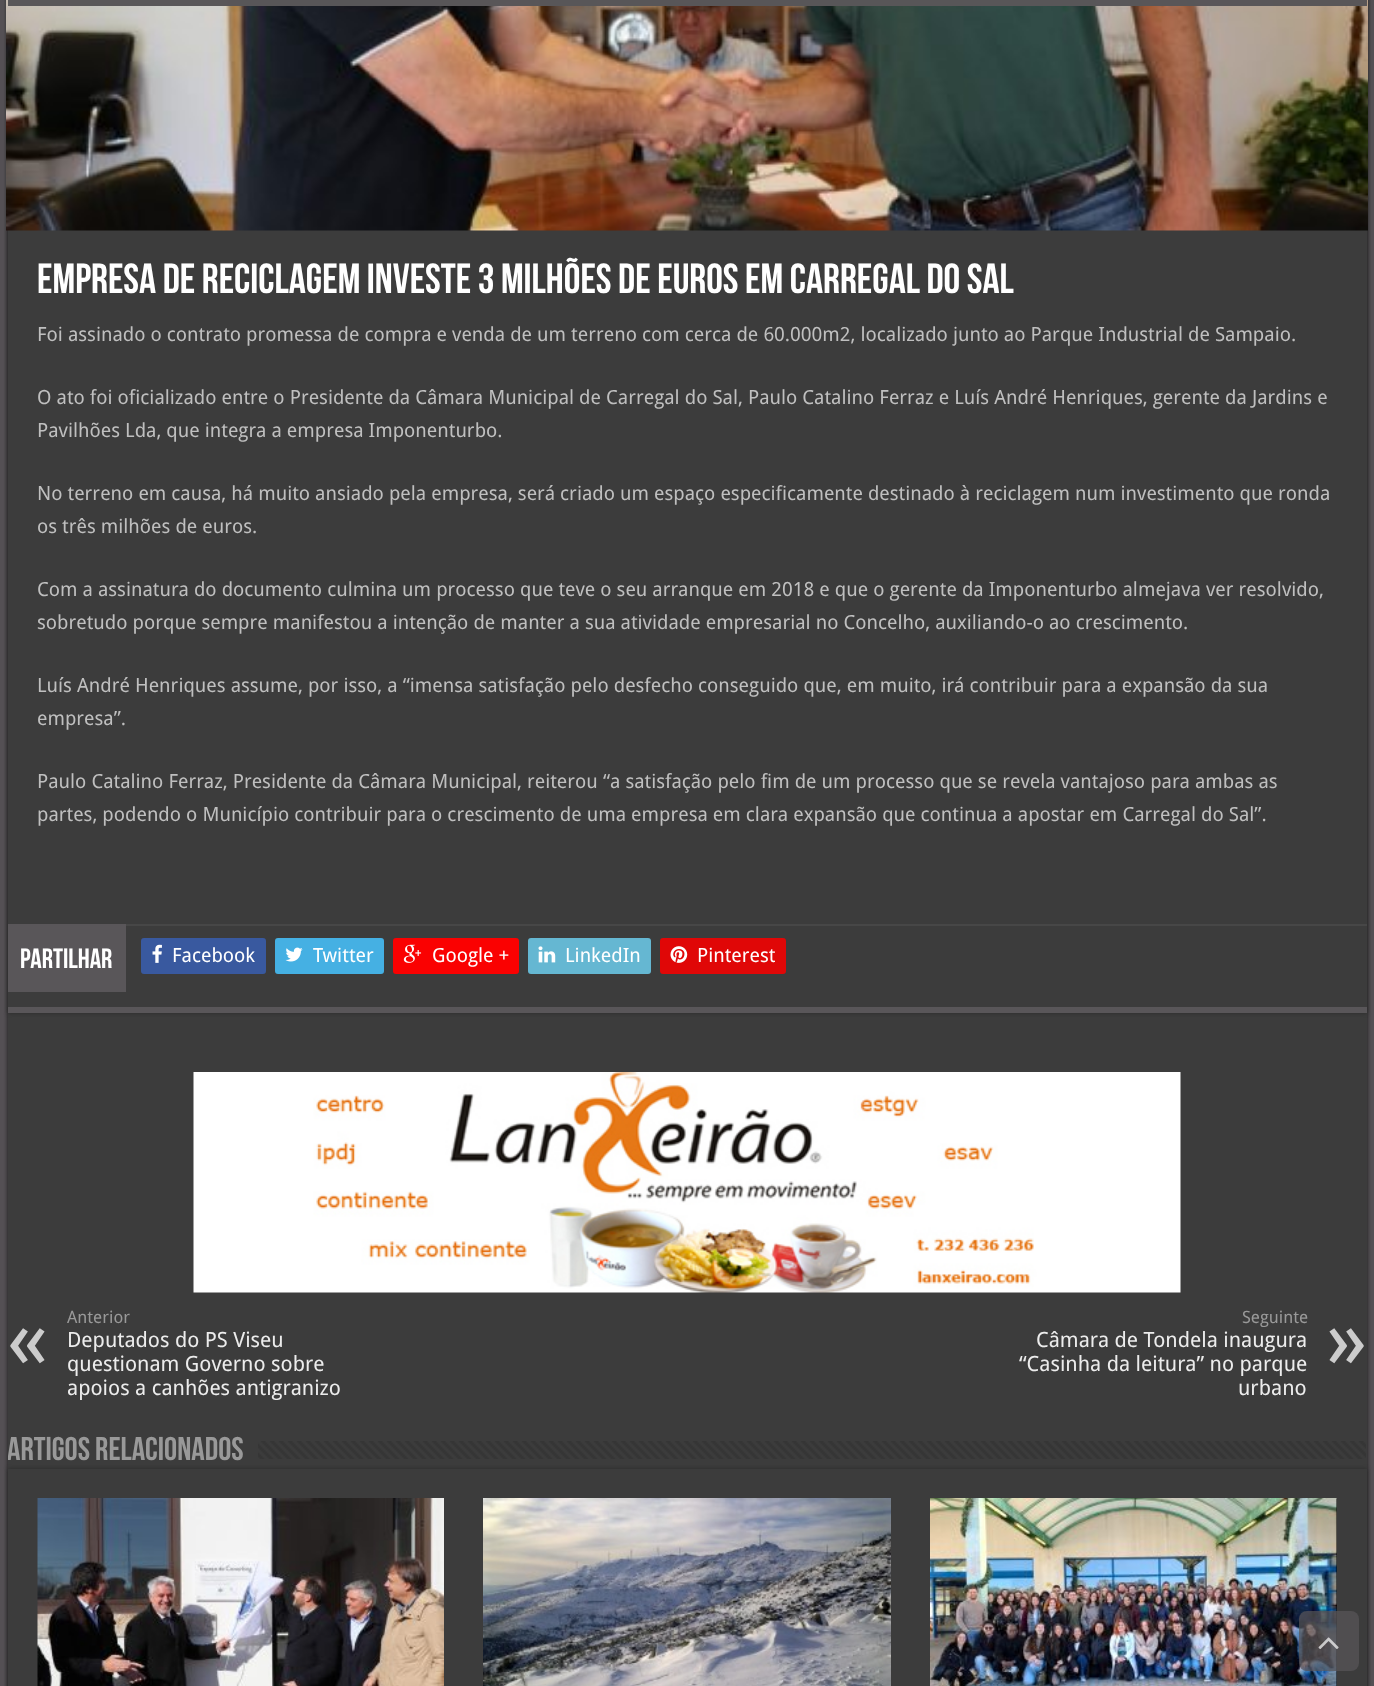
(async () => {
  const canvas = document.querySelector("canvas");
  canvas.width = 1374;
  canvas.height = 1686;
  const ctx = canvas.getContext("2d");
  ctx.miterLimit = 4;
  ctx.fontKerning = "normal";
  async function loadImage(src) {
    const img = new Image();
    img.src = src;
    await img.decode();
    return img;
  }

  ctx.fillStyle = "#545054";
  ctx.fillRect(0, 0, 1374, 1686);
  ctx.fillStyle = "#141414";
  ctx.filter = "blur(2px)";
  ctx.beginPath();
  ctx.rect(8, -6, 1359, 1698);
  ctx.fill();
  ctx.filter = "none";
  ctx.fillStyle = "#3c3c3c";
  ctx.fillRect(8, 1013, 1359, 456);
  ctx.fillStyle = "#2a2a2a";
  ctx.filter = "blur(2px)";
  ctx.beginPath();
  ctx.rect(8, -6, 1359, 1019);
  ctx.fill();
  ctx.filter = "none";
  ctx.fillStyle = "#3c3c3c";
  ctx.fillRect(8, 230, 1359, 777);
  ctx.drawImage(await loadImage("img/1.png"), 6, 0, 1362, 231);
  for (const [x, y, w, h, color] of [
    [8, 0, 1359, 6, "rgba(89, 86, 89, 0.95)"],
    [8, 0, 1359, 6, "rgba(89, 86, 89, 0.95)"],
    [8, 1007, 1359, 6, "#595659"],
    [126, 924, 1241, 2, "#474747"],
    [8, 924, 118, 68, "#595659"],
  ]) {
    ctx.fillStyle = color;
    ctx.fillRect(x, y, w, h);
  }
  ctx.fillStyle = "#39599f";
  ctx.beginPath();
  ctx.roundRect(141, 938, 125, 36, 3);
  ctx.fill();
  ctx.drawImage(await loadImage("img/2.png"), 152, 944, 10, 19);
  ctx.fillStyle = "#45b0e3";
  ctx.beginPath();
  ctx.roundRect(275, 938, 109, 36, 3);
  ctx.fill();
  ctx.drawImage(await loadImage("img/3.png"), 285, 947, 18, 15);
  ctx.fillStyle = "#fa0101";
  ctx.beginPath();
  ctx.roundRect(393, 938, 126, 36, 3);
  ctx.fill();
  ctx.drawImage(await loadImage("img/4.png"), 403, 944, 19, 19);
  ctx.fillStyle = "#65b7d2";
  ctx.beginPath();
  ctx.roundRect(528, 938, 123, 36, 3);
  ctx.fill();
  ctx.drawImage(await loadImage("img/5.png"), 538, 946, 18, 17);
  ctx.fillStyle = "#e00707";
  ctx.beginPath();
  ctx.roundRect(660, 938, 126, 36, 3);
  ctx.fill();
  ctx.drawImage(await loadImage("img/6.png"), 670, 946, 18, 17);
  ctx.drawImage(await loadImage("img/7.png"), 193, 1072, 988, 221);
  ctx.drawImage(await loadImage("img/8.png"), 258, 1441, 1108, 18);
  ctx.fillStyle = "#2a2a2a";
  ctx.filter = "blur(2px)";
  ctx.beginPath();
  ctx.rect(8, 1469, 1359, 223);
  ctx.fill();
  ctx.filter = "none";
  ctx.fillStyle = "#3c3c3c";
  ctx.fillRect(8, 1469, 1359, 217);
  ctx.drawImage(await loadImage("img/9.png"), 37, 1498, 407, 188);
  ctx.drawImage(await loadImage("img/10.png"), 483, 1498, 408, 188);
  ctx.fillStyle = "#000000";
  ctx.fillRect(1336, 1499, 1, 187);
  ctx.drawImage(await loadImage("img/11.png"), 930, 1498, 407, 188);
  ctx.fillStyle = "rgba(89, 86, 89, 0.7)";
  ctx.beginPath();
  ctx.roundRect(1299, 1611, 60, 60, 8);
  ctx.fill();
  ctx.drawImage(await loadImage("img/12.png"), 1318, 1637, 21, 12);
  ctx.font = "bold 42px Bebas Neue";
  ctx.fillStyle = "#ffffff";
  ctx.fillText("Empresa de reciclagem investe 3 milhões de euros em Carregal do Sal", 37, 293);
  ctx.font = "19.5px Droid Sans";
  ctx.fillStyle = "#bfbfbf";
  for (const [text, x, y] of [
    ["Foi assinado o contrato promessa de compra e venda de um terreno com cerca de 60.000m2, localizado junto ao Parque Industrial de Sampaio.", 37, 341],
    ["O ato foi oficializado entre o Presidente da Câmara Municipal de Carregal do Sal, Paulo Catalino Ferraz e Luís André Henriques, gerente da Jardins e", 37, 404],
    ["Pavilhões Lda, que integra a empresa Imponenturbo.", 37, 437],
    ["No terreno em causa, há muito ansiado pela empresa, será criado um espaço especificamente destinado à reciclagem num investimento que ronda", 37, 500],
    ["os três milhões de euros.", 37, 533],
    ["Com a assinatura do documento culmina um processo que teve o seu arranque em 2018 e que o gerente da Imponenturbo almejava ver resolvido,", 37, 596],
    ["sobretudo porque sempre manifestou a intenção de manter a sua atividade empresarial no Concelho, auxiliando-o ao crescimento.", 37, 629],
    ["Luís André Henriques assume, por isso, a “imensa satisfação pelo desfecho conseguido que, em muito, irá contribuir para a expansão da sua", 37, 692],
    ["empresa”.", 37, 725],
    ["Paulo Catalino Ferraz, Presidente da Câmara Municipal, reiterou “a satisfação pelo fim de um processo que se revela vantajoso para ambas as", 37, 788],
    ["partes, podendo o Município contribuir para o crescimento de uma empresa em clara expansão que continua a apostar em Carregal do Sal”.", 37, 821],
  ]) {
    ctx.fillText(text, x, y);
  }
  ctx.font = "bold 28px Bebas Neue";
  ctx.fillStyle = "#ffffff";
  ctx.fillText("Partilhar", 20, 968);
  ctx.font = "19.5px Droid Sans";
  for (const [text, x, y] of [
    ["Facebook", 172, 962],
    ["Twitter", 313, 962],
    ["Google +", 432, 962],
    ["LinkedIn", 565, 962],
    ["Pinterest", 697, 962],
  ]) {
    ctx.fillText(text, x, y);
  }
  ctx.font = "17px Droid Sans";
  ctx.fillStyle = "#999999";
  ctx.fillText("Anterior", 67, 1323);
  ctx.font = "84px Droid Sans";
  ctx.fillStyle = "#cccccc";
  ctx.fillText("«", 7, 1368);
  ctx.font = "21px Droid Sans";
  ctx.fillStyle = "#ececec";
  for (const [text, x, y] of [
    ["Deputados do PS Viseu", 67, 1347],
    ["questionam Governo sobre", 67, 1371],
    ["apoios a canhões antigranizo", 67, 1395],
  ]) {
    ctx.fillText(text, x, y);
  }
  ctx.font = "17px Droid Sans";
  ctx.fillStyle = "#999999";
  ctx.fillText("Seguinte", 1242, 1323);
  ctx.font = "21px Droid Sans";
  ctx.fillStyle = "#ececec";
  ctx.fillText("Câmara de Tondela inaugura", 1036, 1347);
  ctx.font = "84px Droid Sans";
  ctx.fillStyle = "#cccccc";
  ctx.fillText("»", 1326, 1368);
  ctx.font = "21px Droid Sans";
  ctx.fillStyle = "#ececec";
  ctx.fillText("“Casinha da leitura” no parque", 1019, 1371);
  ctx.fillText("urbano", 1238, 1395);
  ctx.save();
  ctx.beginPath();
  ctx.rect(8, 1430, 1359, 39);
  ctx.clip();
  ctx.font = "bold 33px Bebas Neue";
  ctx.fillStyle = "#999999";
  ctx.fillText("Artigos Relacionados", 7, 1460);
  ctx.restore();
})();
